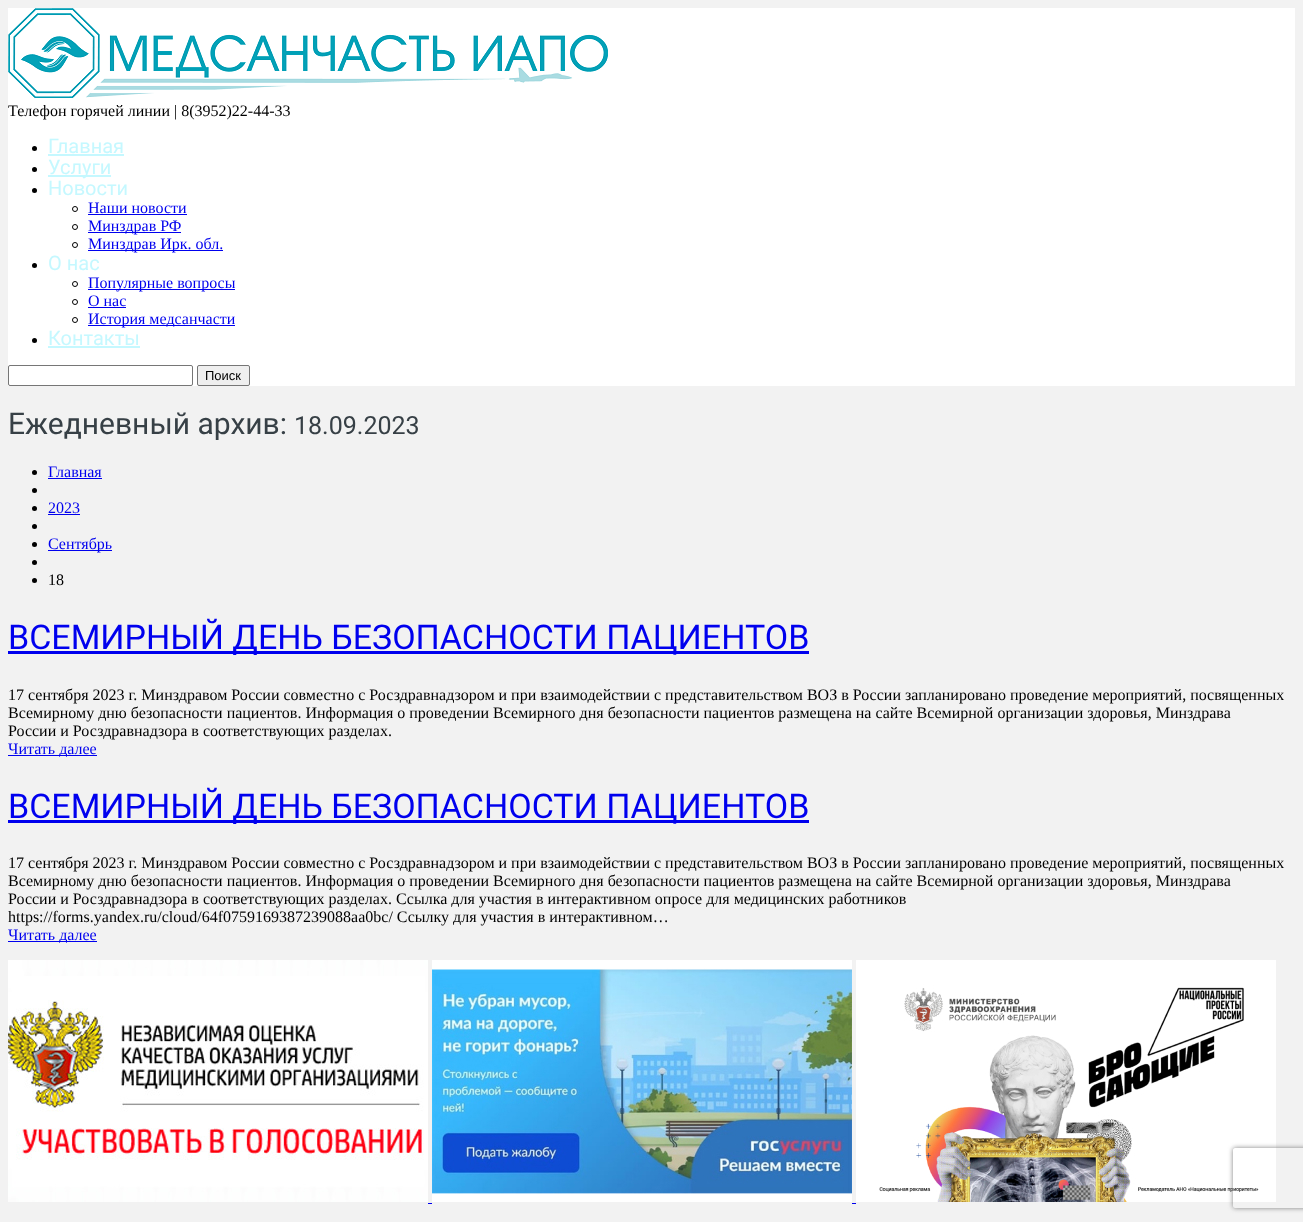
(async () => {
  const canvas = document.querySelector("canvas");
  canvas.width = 1303;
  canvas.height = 1222;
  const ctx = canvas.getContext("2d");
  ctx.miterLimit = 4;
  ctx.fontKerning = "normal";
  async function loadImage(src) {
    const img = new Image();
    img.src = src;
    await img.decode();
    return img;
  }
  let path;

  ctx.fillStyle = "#f2f2f2";
  ctx.fillRect(0, 0, 1303, 1222);
  ctx.fillStyle = "#ffffff";
  ctx.fillRect(8, 8, 1287, 378);
  ctx.drawImage(await loadImage("img/1.png"), 8, 8, 600, 90);
  ctx.fillStyle = "#000000";
  ctx.beginPath();
  ctx.arc(34.5, 148.5, 2.5, 0, Math.PI * 2);
  ctx.fill();
  ctx.fillStyle = "#c5f8ff";
  ctx.fillRect(48, 154, 76, 2);
  ctx.fillStyle = "#000000";
  ctx.beginPath();
  ctx.arc(34.5, 169.5, 2.5, 0, Math.PI * 2);
  ctx.fill();
  ctx.fillStyle = "#c5f8ff";
  ctx.fillRect(48, 175, 63, 2);
  ctx.fillStyle = "#000000";
  ctx.beginPath();
  ctx.arc(34.5, 190.5, 2.5, 0, Math.PI * 2);
  ctx.fill();
  ctx.beginPath();
  ctx.arc(75, 209, 2.5, 0, Math.PI * 2);
  ctx.strokeStyle = "#000000";
  ctx.stroke();
  ctx.fillStyle = "#0000ee";
  ctx.fillRect(88, 214, 99, 1);
  ctx.beginPath();
  ctx.arc(75, 227, 2.5, 0, Math.PI * 2);
  ctx.stroke();
  ctx.fillRect(88, 232, 93, 1);
  ctx.beginPath();
  ctx.arc(75, 245, 2.5, 0, Math.PI * 2);
  ctx.stroke();
  ctx.fillRect(88, 250, 135, 1);
  ctx.fillStyle = "#000000";
  ctx.beginPath();
  ctx.arc(34.5, 265.5, 2.5, 0, Math.PI * 2);
  ctx.fill();
  ctx.beginPath();
  ctx.arc(75, 284, 2.5, 0, Math.PI * 2);
  ctx.stroke();
  ctx.fillStyle = "#0000ee";
  ctx.fillRect(88, 289, 147, 1);
  ctx.beginPath();
  ctx.arc(75, 302, 2.5, 0, Math.PI * 2);
  ctx.stroke();
  ctx.fillRect(88, 307, 38, 1);
  ctx.beginPath();
  ctx.arc(75, 320, 2.5, 0, Math.PI * 2);
  ctx.stroke();
  ctx.fillRect(88, 325, 147, 1);
  ctx.fillStyle = "#000000";
  ctx.beginPath();
  ctx.arc(34.5, 340.5, 2.5, 0, Math.PI * 2);
  ctx.fill();
  ctx.fillStyle = "#c5f8ff";
  ctx.fillRect(48, 346, 92, 2);
  ctx.beginPath();
  ctx.roundRect(8.5, 365.5, 184, 20, 1.5);
  ctx.strokeStyle = "#767676";
  ctx.stroke();
  ctx.fillStyle = "#efefef";
  ctx.beginPath();
  ctx.roundRect(197.5, 365.5, 52, 20, 1.5);
  ctx.fill();
  ctx.stroke();
  ctx.fillStyle = "#000000";
  ctx.beginPath();
  ctx.arc(34.5, 472.5, 2.5, 0, Math.PI * 2);
  ctx.fill();
  ctx.fillStyle = "#0000ee";
  ctx.fillRect(48, 478, 54, 1);
  ctx.fillStyle = "#000000";
  ctx.beginPath();
  ctx.arc(34.5, 490.5, 2.5, 0, Math.PI * 2);
  ctx.fill();
  ctx.beginPath();
  ctx.arc(34.5, 508.5, 2.5, 0, Math.PI * 2);
  ctx.fill();
  ctx.fillStyle = "#0000ee";
  ctx.fillRect(48, 514, 32, 1);
  ctx.fillStyle = "#000000";
  ctx.beginPath();
  ctx.arc(34.5, 526.5, 2.5, 0, Math.PI * 2);
  ctx.fill();
  ctx.beginPath();
  ctx.arc(34.5, 544.5, 2.5, 0, Math.PI * 2);
  ctx.fill();
  ctx.fillStyle = "#0000ee";
  ctx.fillRect(48, 550, 64, 1);
  ctx.fillStyle = "#000000";
  ctx.beginPath();
  ctx.arc(34.5, 562.5, 2.5, 0, Math.PI * 2);
  ctx.fill();
  ctx.beginPath();
  ctx.arc(34.5, 580.5, 2.5, 0, Math.PI * 2);
  ctx.fill();
  for (const [x, y, w, h, color] of [
    [8, 651, 801, 3, "#0000ee"],
    [8, 755, 89, 1, "#0000ee"],
    [8, 820, 801, 3, "#0000ee"],
    [8, 941, 89, 1, "#0000ee"],
  ]) {
    ctx.fillStyle = color;
    ctx.fillRect(x, y, w, h);
  }
  ctx.drawImage(await loadImage("img/2.png"), 8, 960, 420, 242);
  ctx.drawImage(await loadImage("img/3.png"), 432, 960, 420, 242);
  ctx.drawImage(await loadImage("img/4.png"), 856, 960, 420, 242);
  ctx.fillRect(428, 1203, 4, 1);
  ctx.fillRect(852, 1203, 4, 1);
  ctx.save();
  path = new Path2D("M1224 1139H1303V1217H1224ZM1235 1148H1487C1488 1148 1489 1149 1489 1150V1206C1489 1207 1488 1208 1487 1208H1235C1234 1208 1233 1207 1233 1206V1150C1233 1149 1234 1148 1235 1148Z");
  ctx.clip(path, "evenodd");
  ctx.fillStyle = "#808080";
  ctx.filter = "blur(2.5px)";
  ctx.beginPath();
  ctx.roundRect(1233, 1148, 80, 60, 2);
  ctx.fill();
  ctx.filter = "none";
  ctx.restore();
  ctx.font = "16px Liberation Serif";
  ctx.fillStyle = "#000000";
  ctx.fillText("Телефон горячей линии | 8(3952)22-44-33", 8, 116);
  ctx.font = "20px Roboto";
  ctx.fillStyle = "#c5f8ff";
  for (const [text, x, y] of [
    ["Главная", 48, 153],
    ["Услуги", 48, 174],
    ["Новости", 48, 195],
  ]) {
    ctx.fillText(text, x, y);
  }
  ctx.font = "16px Liberation Serif";
  ctx.fillStyle = "#0000ee";
  for (const [text, x, y] of [
    ["Наши новости", 88, 213],
    ["Минздрав РФ", 88, 231],
    ["Минздрав Ирк. обл.", 88, 249],
  ]) {
    ctx.fillText(text, x, y);
  }
  ctx.font = "20px Roboto";
  ctx.fillStyle = "#c5f8ff";
  ctx.fillText("О нас", 48, 270);
  ctx.font = "16px Liberation Serif";
  ctx.fillStyle = "#0000ee";
  for (const [text, x, y] of [
    ["Популярные вопросы", 88, 288],
    ["О нас", 88, 306],
    ["История медсанчасти", 88, 324],
  ]) {
    ctx.fillText(text, x, y);
  }
  ctx.font = "20px Roboto";
  ctx.fillStyle = "#c5f8ff";
  ctx.fillText("Контакты", 48, 345);
  ctx.font = "13px Liberation Sans";
  ctx.fillStyle = "#000000";
  ctx.fillText("Поиск", 205, 380);
  ctx.font = "30px Roboto";
  ctx.fillStyle = "#374046";
  ctx.fillText("Ежедневный архив:", 8, 434);
  ctx.font = "25px Roboto";
  ctx.fillText("18.09.2023", 294, 434);
  ctx.font = "16px Liberation Serif";
  ctx.fillStyle = "#0000ee";
  for (const [text, x, y] of [
    ["Главная", 48, 477],
    ["2023", 48, 513],
    ["Сентябрь", 48, 549],
  ]) {
    ctx.fillText(text, x, y);
  }
  ctx.fillStyle = "#000000";
  ctx.fillText("18", 48, 585);
  ctx.font = "34px Roboto";
  ctx.fillStyle = "#0000ee";
  ctx.fillText("ВСЕМИРНЫЙ ДЕНЬ БЕЗОПАСНОСТИ ПАЦИЕНТОВ", 8, 649);
  ctx.font = "16px Liberation Serif";
  ctx.fillStyle = "#000000";
  for (const [text, x, y] of [
    ["17 сентября 2023 г. Минздравом России совместно с Росздравнадзором и при взаимодействии с представительством ВОЗ в России запланировано проведение мероприятий, посвященных", 8, 700],
    ["Всемирному дню безопасности пациентов. Информация о проведении Всемирного дня безопасности пациентов размещена на сайте Всемирной организации здоровья, Минздрава", 8, 718],
    ["России и Росздравнадзора в соответствующих разделах.", 8, 736],
  ]) {
    ctx.fillText(text, x, y);
  }
  ctx.fillStyle = "#0000ee";
  ctx.fillText("Читать далее", 8, 754);
  ctx.font = "34px Roboto";
  ctx.fillText("ВСЕМИРНЫЙ ДЕНЬ БЕЗОПАСНОСТИ ПАЦИЕНТОВ", 8, 818);
  ctx.font = "16px Liberation Serif";
  ctx.fillStyle = "#000000";
  for (const [text, x, y] of [
    ["17 сентября 2023 г. Минздравом России совместно с Росздравнадзором и при взаимодействии с представительством ВОЗ в России запланировано проведение мероприятий, посвященных", 8, 868],
    ["Всемирному дню безопасности пациентов. Информация о проведении Всемирного дня безопасности пациентов размещена на сайте Всемирной организации здоровья, Минздрава", 8, 886],
    ["России и Росздравнадзора в соответствующих разделах. Ссылка для участия в интерактивном опросе для медицинских работников", 8, 904],
    ["https://forms.yandex.ru/cloud/64f0759169387239088aa0bc/ Ссылку для участия в интерактивном…", 8, 922],
  ]) {
    ctx.fillText(text, x, y);
  }
  ctx.fillStyle = "#0000ee";
  ctx.fillText("Читать далее", 8, 940);
})();
